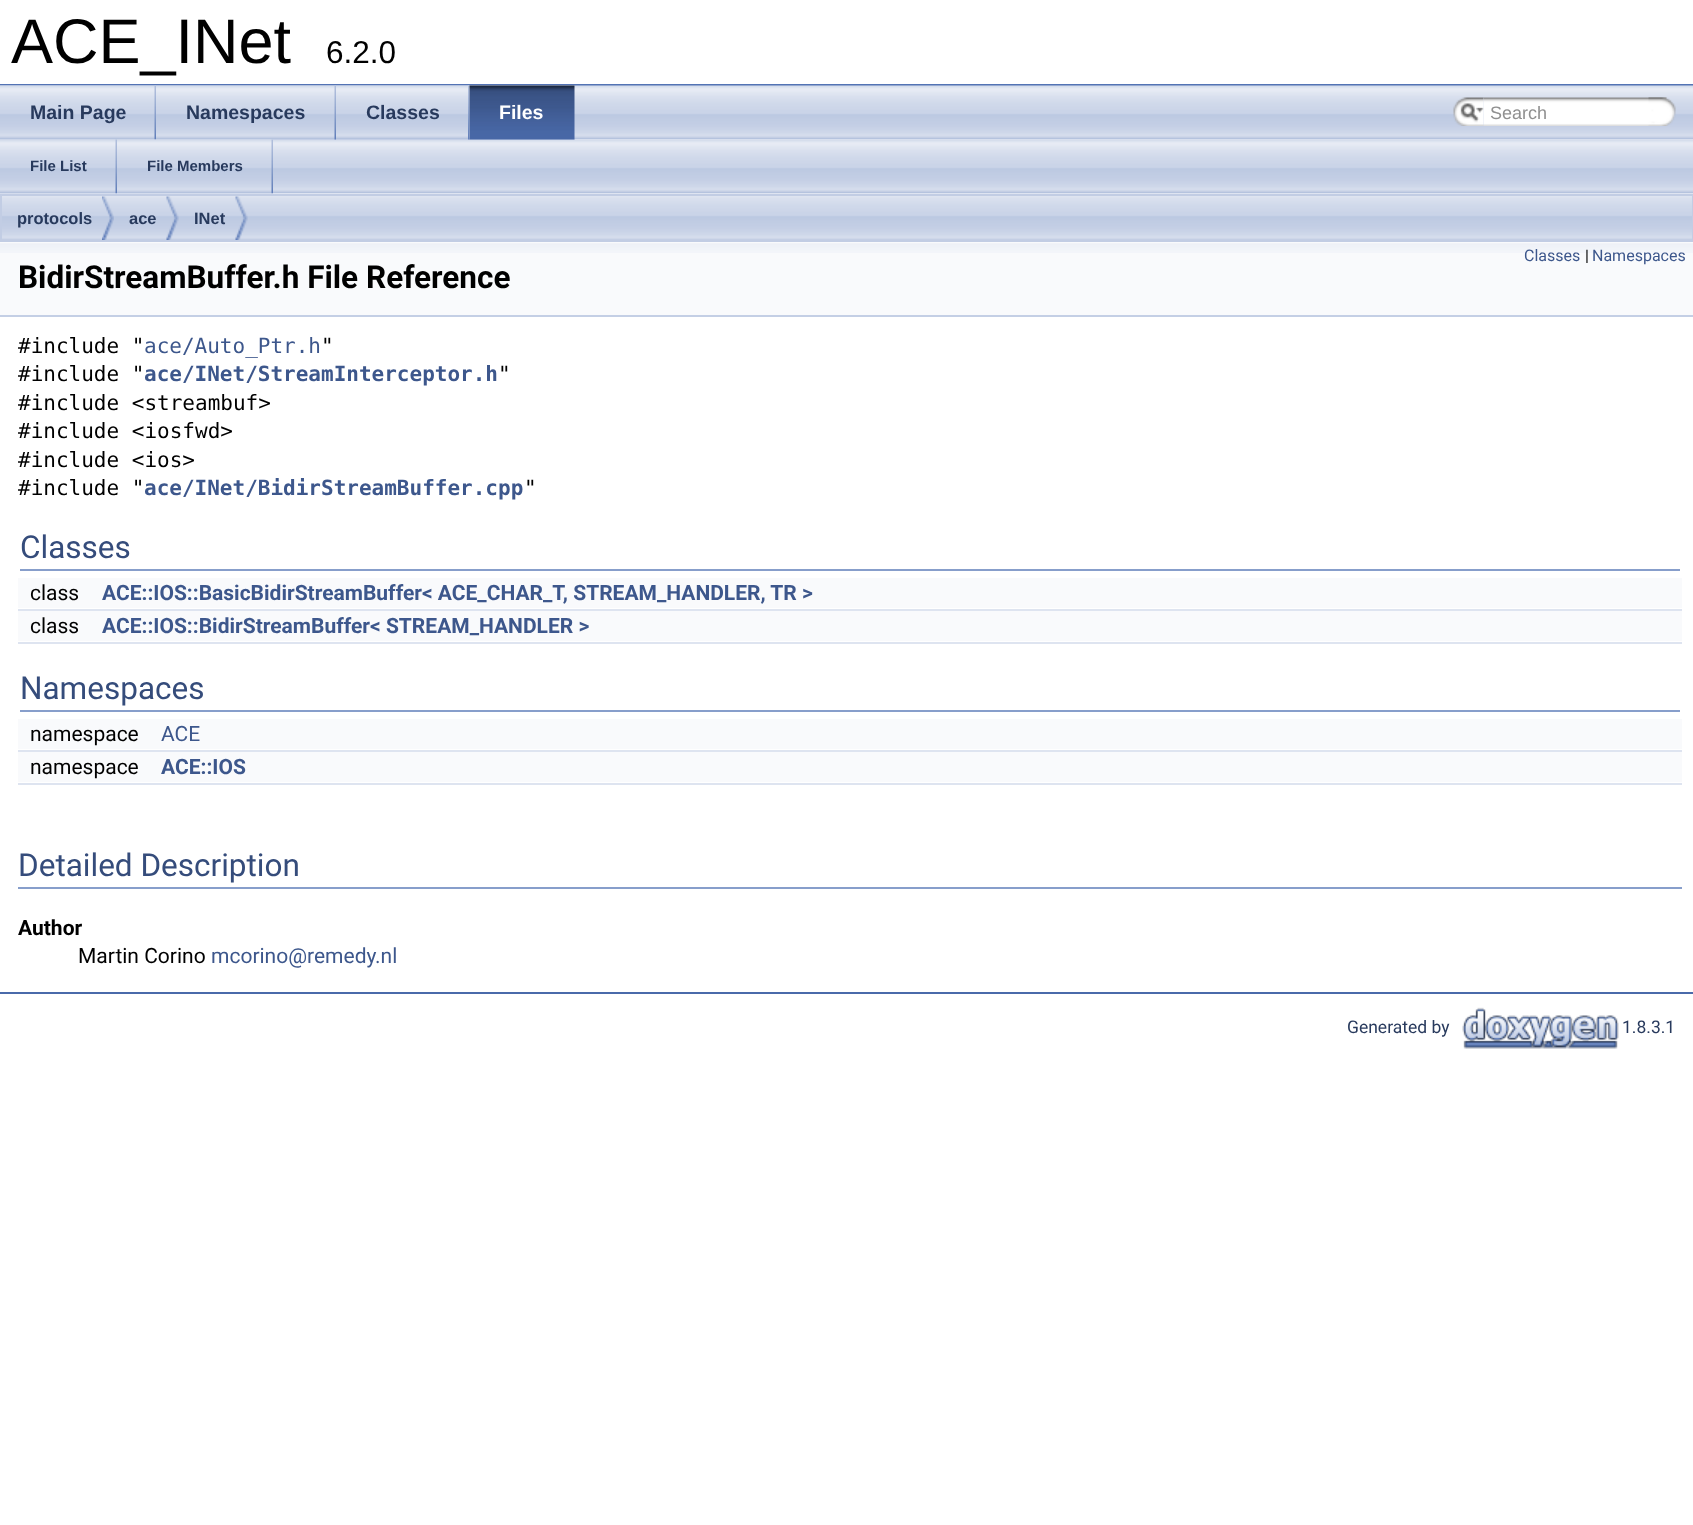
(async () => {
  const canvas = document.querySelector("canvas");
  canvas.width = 1693;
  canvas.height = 1525;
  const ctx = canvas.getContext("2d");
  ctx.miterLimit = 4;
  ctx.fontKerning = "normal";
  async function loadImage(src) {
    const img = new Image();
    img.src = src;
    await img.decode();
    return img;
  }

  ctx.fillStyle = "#ffffff";
  ctx.fillRect(0, 0, 1693, 1525);
  ctx.fillStyle = "#5373b4";
  ctx.fillRect(0, 84, 1693, 2);
  ctx.drawImage(await loadImage("img/1.png"), 0, 85, 1693, 55);
  ctx.drawImage(await loadImage("img/2.png"), 0, 85, 156, 55);
  ctx.drawImage(await loadImage("img/3.png"), 154, 86, 2, 54);
  ctx.drawImage(await loadImage("img/4.png"), 156, 85, 180, 55);
  ctx.drawImage(await loadImage("img/3.png"), 334, 86, 2, 54);
  ctx.drawImage(await loadImage("img/5.png"), 336, 85, 134, 55);
  ctx.drawImage(await loadImage("img/6.png"), 468, 86, 2, 54);
  ctx.drawImage(await loadImage("img/7.png"), 469, 85, 106, 55);
  ctx.drawImage(await loadImage("img/8.png"), 469, 85, 106, 55);
  ctx.drawImage(await loadImage("img/9.png"), 1453, 97, 31, 29);
  ctx.drawImage(await loadImage("img/10.png"), 1460, 103, 24, 19);
  ctx.drawImage(await loadImage("img/11.png"), 1483, 97, 184, 29);
  ctx.drawImage(await loadImage("img/12.png"), 1648, 97, 28, 29);
  ctx.drawImage(await loadImage("img/13.png"), 0, 140, 1693, 54);
  ctx.drawImage(await loadImage("img/14.png"), 0, 139, 117, 55);
  ctx.drawImage(await loadImage("img/15.png"), 115, 139, 2, 55);
  ctx.drawImage(await loadImage("img/16.png"), 117, 139, 156, 55);
  ctx.drawImage(await loadImage("img/15.png"), 271, 139, 2, 55);
  ctx.drawImage(await loadImage("img/17.png"), 0, 193, 1693, 47);
  ctx.strokeStyle = "#c2cde4";
  ctx.lineWidth = 2;
  ctx.strokeRect(1, 195, 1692, 46);
  ctx.drawImage(await loadImage("img/18.png"), 102, 196, 12, 44);
  ctx.drawImage(await loadImage("img/19.png"), 166, 196, 13, 44);
  ctx.drawImage(await loadImage("img/19.png"), 235, 196, 13, 44);
  ctx.fillStyle = "#f9fafc";
  ctx.fillRect(0, 242, 1693, 73);
  ctx.drawImage(await loadImage("img/20.png"), 0, 243, 1693, 10);
  for (const [x, y, w, h, color] of [
    [0, 315, 1693, 2, "#c4cfe5"],
    [20, 569, 1660, 2, "#879ecb"],
    [18, 578, 1664, 30, "#f9fafc"],
    [18, 609, 1664, 2, "#dee4f0"],
    [18, 611, 1664, 30, "#f9fafc"],
    [18, 642, 1664, 2, "#dee4f0"],
    [20, 710, 1660, 2, "#879ecb"],
    [18, 719, 1664, 30, "#f9fafc"],
    [18, 750, 1664, 2, "#dee4f0"],
    [18, 752, 1664, 30, "#f9fafc"],
    [18, 783, 1664, 2, "#dee4f0"],
    [18, 887, 1664, 2, "#879ecb"],
    [0, 992, 1693, 2, "#4a6aaa"],
  ]) {
    ctx.fillStyle = color;
    ctx.fillRect(x, y, w, h);
  }
  ctx.drawImage(await loadImage("img/21.png"), 1462, 1007, 157, 42);
  ctx.font = "63px Liberation Sans";
  ctx.fillStyle = "#000000";
  ctx.fillText("ACE_INet", 11, 63);
  ctx.font = "31.5px Liberation Sans";
  ctx.fillText("6.2.0", 326, 63);
  ctx.font = "bold 19.5px Liberation Sans";
  ctx.fillStyle = "#283a5d";
  for (const [text, x, y] of [
    ["Main Page", 30, 119],
    ["Namespaces", 186, 119],
    ["Classes", 366, 119],
  ]) {
    ctx.fillText(text, x, y);
  }
  ctx.fillStyle = "#ffffff";
  ctx.fillText("Files", 499, 119);
  ctx.font = "18px Liberation Sans";
  ctx.fillStyle = "#909090";
  ctx.fillText("Search", 1490, 119);
  ctx.font = "bold 15px Liberation Sans";
  ctx.fillStyle = "#283a5d";
  ctx.fillText("File List", 30, 171);
  ctx.fillText("File Members", 147, 171);
  ctx.font = "bold 16.5px Liberation Sans";
  for (const [text, x, y] of [
    ["protocols", 17, 224],
    ["ace", 129, 224],
    ["INet", 194, 224],
  ]) {
    ctx.fillText(text, x, y);
  }
  ctx.font = "16px Roboto";
  ctx.fillStyle = "#3d578c";
  ctx.fillText("Classes", 1524, 261);
  ctx.fillStyle = "#000000";
  ctx.fillText("|", 1585, 261);
  ctx.fillStyle = "#3d578c";
  ctx.fillText("Namespaces", 1592, 261);
  ctx.font = "bold 31.5px Roboto";
  ctx.fillStyle = "#000000";
  ctx.fillText("BidirStreamBuffer.h File Reference", 18, 288);
  ctx.font = "21px DejaVu Sans Mono";
  ctx.fillText("#include \"", 18, 353);
  ctx.fillStyle = "#3d578c";
  ctx.fillText("ace/Auto_Ptr.h", 144, 353);
  ctx.fillStyle = "#000000";
  ctx.fillText("\"", 321, 353);
  ctx.fillText("#include \"", 18, 381);
  ctx.font = "bold 21px DejaVu Sans Mono";
  ctx.fillStyle = "#3d578c";
  ctx.fillText("ace/INet/StreamInterceptor.h", 144, 381);
  ctx.font = "21px DejaVu Sans Mono";
  ctx.fillStyle = "#000000";
  for (const [text, x, y] of [
    ["\"", 498, 381],
    ["#include <streambuf>", 18, 410],
    ["#include <iosfwd>", 18, 438],
    ["#include <ios>", 18, 467],
    ["#include \"", 18, 495],
  ]) {
    ctx.fillText(text, x, y);
  }
  ctx.font = "bold 21px DejaVu Sans Mono";
  ctx.fillStyle = "#3d578c";
  ctx.fillText("ace/INet/BidirStreamBuffer.cpp", 144, 495);
  ctx.font = "21px DejaVu Sans Mono";
  ctx.fillStyle = "#000000";
  ctx.fillText("\"", 524, 495);
  ctx.font = "31.5px Roboto";
  ctx.fillStyle = "#354c7b";
  ctx.fillText("Classes", 20, 558);
  ctx.font = "21px Roboto";
  ctx.fillStyle = "#000000";
  ctx.fillText("class", 30, 600);
  ctx.font = "bold 21px Roboto";
  ctx.fillStyle = "#3d578c";
  ctx.fillText("ACE::IOS::BasicBidirStreamBuffer< ACE_CHAR_T, STREAM_HANDLER, TR >", 102, 600);
  ctx.font = "21px Roboto";
  ctx.fillStyle = "#000000";
  ctx.fillText("class", 30, 633);
  ctx.font = "bold 21px Roboto";
  ctx.fillStyle = "#3d578c";
  ctx.fillText("ACE::IOS::BidirStreamBuffer< STREAM_HANDLER >", 102, 633);
  ctx.font = "31.5px Roboto";
  ctx.fillStyle = "#354c7b";
  ctx.fillText("Namespaces", 20, 699);
  ctx.font = "21px Roboto";
  ctx.fillStyle = "#000000";
  ctx.fillText("namespace", 30, 741);
  ctx.fillStyle = "#3d578c";
  ctx.fillText("ACE", 161, 741);
  ctx.fillStyle = "#000000";
  ctx.fillText("namespace", 30, 774);
  ctx.font = "bold 21px Roboto";
  ctx.fillStyle = "#3d578c";
  ctx.fillText("ACE::IOS", 161, 774);
  ctx.font = "31.5px Roboto";
  ctx.fillStyle = "#354c7b";
  ctx.fillText("Detailed Description", 18, 876);
  ctx.font = "bold 21px Roboto";
  ctx.fillStyle = "#000000";
  ctx.fillText("Author", 18, 935);
  ctx.font = "21px Roboto";
  ctx.fillText("Martin Corino", 78, 963);
  ctx.fillStyle = "#3d578c";
  ctx.fillText("mcorino@remedy", 211, 963);
  ctx.fillText(".nl", 375, 963);
  ctx.font = "17.5px Roboto";
  ctx.fillStyle = "#283a5d";
  ctx.fillText("Generated by", 1347, 1033);
  ctx.fillText("1.8.3.1", 1622, 1033);
})();
